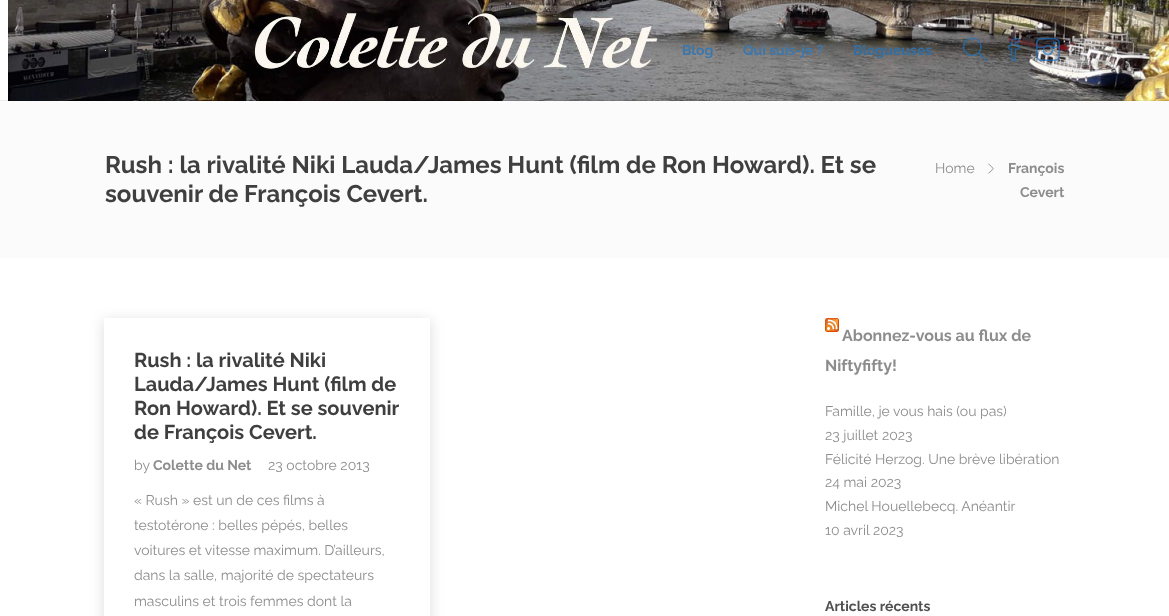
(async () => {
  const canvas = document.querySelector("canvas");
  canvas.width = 1169;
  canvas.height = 616;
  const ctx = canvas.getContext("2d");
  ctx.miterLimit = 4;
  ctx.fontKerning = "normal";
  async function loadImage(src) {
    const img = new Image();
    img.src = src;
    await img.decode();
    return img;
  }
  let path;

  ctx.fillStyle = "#ffffff";
  ctx.fillRect(0, 0, 1169, 616);
  ctx.drawImage(await loadImage("img/1.png"), 8, 0, 1161, 101);
  ctx.fillStyle = "rgba(0, 0, 0, 0.08)";
  ctx.fillRect(0, 100, 1169, 1);
  ctx.fillStyle = "#fefefe";
  ctx.fillRect(105, 50, 1, 1);
  ctx.drawImage(await loadImage("img/2.png"), 963, 37, 24, 25);
  ctx.drawImage(await loadImage("img/3.png"), 1008, 37, 12, 25);
  ctx.drawImage(await loadImage("img/4.png"), 1036, 37, 24, 25);
  ctx.fillStyle = "#fbfbfb";
  ctx.fillRect(0, 101, 1169, 157);
  ctx.drawImage(await loadImage("img/5.png"), 988, 163, 6, 11);
  ctx.save();
  path = new Path2D("M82 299H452V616H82ZM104 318H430V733H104Z");
  ctx.clip(path, "evenodd");
  ctx.fillStyle = "rgba(0, 0, 0, 0.12)";
  ctx.filter = "blur(6.5px)";
  ctx.beginPath();
  ctx.rect(103, 320, 328, 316);
  ctx.fill();
  ctx.filter = "none";
  ctx.restore();
  ctx.drawImage(await loadImage("img/6.png"), 825, 318, 14, 14);
  ctx.font = "bold 14px Raleway";
  ctx.fillStyle = "#3d77ab";
  ctx.fillText("Blog", 682, 55);
  ctx.fillText("Qui suis-je ?", 743, 55);
  ctx.fillStyle = "#346ea0";
  ctx.fillText("Blogueuses", 853, 55);
  ctx.font = "bold 24px Raleway";
  ctx.fillStyle = "#3f3f3f";
  ctx.fillText("Rush : la rivalité Niki Lauda/James Hunt (film de Ron Howard). Et se", 105, 173);
  ctx.fillText("souvenir de François Cevert.", 105, 202);
  ctx.font = "14px Raleway";
  ctx.fillStyle = "#8d8d8d";
  ctx.fillText("Home", 935, 173);
  ctx.font = "bold 14px Raleway";
  ctx.fillText("François", 1008, 173);
  ctx.fillText("Cevert", 1020, 197);
  ctx.font = "bold 20px Raleway";
  ctx.fillStyle = "#3f3f3f";
  for (const [text, x, y] of [
    ["Rush : la rivalité Niki", 134, 367],
    ["Lauda/James Hunt (film de", 134, 391],
    ["Ron Howard). Et se souvenir", 134, 415],
    ["de François Cevert.", 134, 439],
  ]) {
    ctx.fillText(text, x, y);
  }
  ctx.font = "14px Raleway";
  ctx.fillStyle = "#8d8d8d";
  ctx.fillText("by", 134, 470);
  ctx.font = "bold 14px Raleway";
  ctx.fillText("Colette du Net", 153, 470);
  ctx.font = "14px Raleway";
  for (const [text, x, y] of [
    ["23 octobre 2013", 268, 470],
    ["« Rush » est un de ces films à", 134, 505],
    ["testotérone : belles pépés, belles", 134, 530],
    ["voitures et vitesse maximum. D’ailleurs,", 134, 555],
    ["dans la salle, majorité de spectateurs", 134, 580],
    ["masculins et trois femmes dont la", 134, 606],
  ]) {
    ctx.fillText(text, x, y);
  }
  ctx.font = "bold 16px Raleway";
  ctx.fillText("Abonnez-vous au flux de", 842, 341);
  ctx.fillText("Niftyfifty!", 825, 371);
  ctx.font = "14px Raleway";
  for (const [text, x, y] of [
    ["Famille, je vous hais (ou pas)", 825, 416],
    ["23 juillet 2023", 825, 440],
    ["Félicité Herzog. Une brève libération", 825, 464],
    ["24 mai 2023", 825, 487],
    ["Michel Houellebecq. Anéantir", 825, 511],
    ["10 avril 2023", 825, 535],
  ]) {
    ctx.fillText(text, x, y);
  }
  ctx.font = "bold 14px Raleway";
  ctx.fillStyle = "#505050";
  ctx.fillText("Articles récents", 825, 611);
})();
